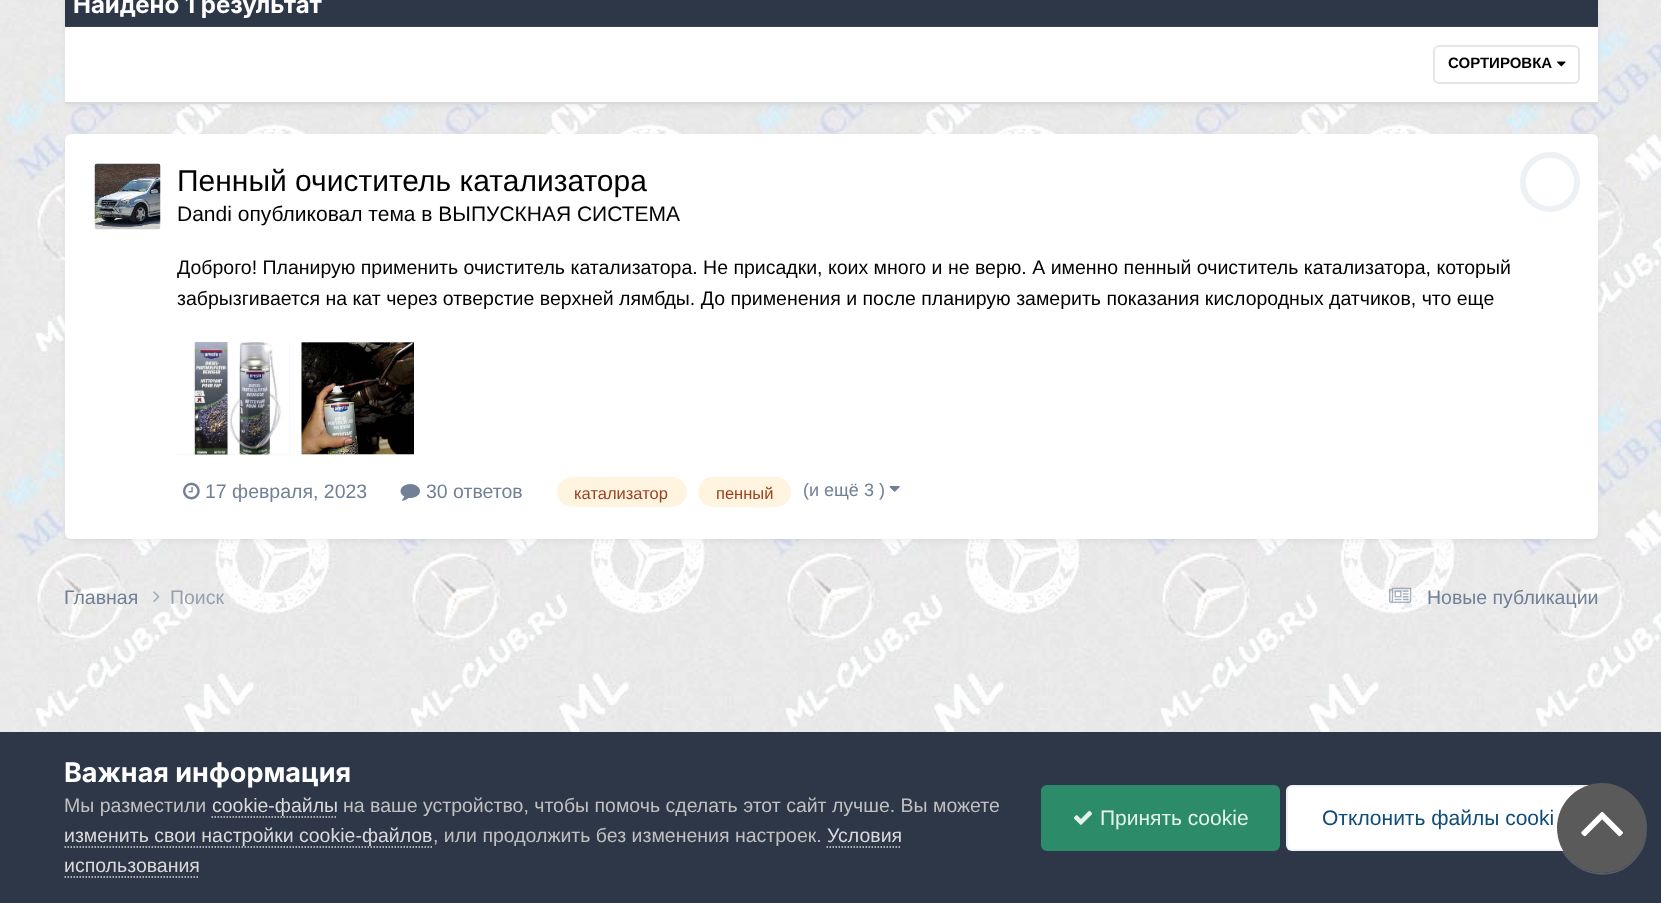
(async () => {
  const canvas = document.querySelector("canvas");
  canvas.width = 1661;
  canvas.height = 903;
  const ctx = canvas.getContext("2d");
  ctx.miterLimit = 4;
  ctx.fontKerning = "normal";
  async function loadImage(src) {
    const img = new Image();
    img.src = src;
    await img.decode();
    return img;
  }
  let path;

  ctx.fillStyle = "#ffffff";
  ctx.fillRect(0, 0, 1661, 903);
  ctx.drawImage(await loadImage("img/1.png"), 0, 0, 1661, 732);
  ctx.fillStyle = "rgba(45, 55, 72, 0.1)";
  ctx.filter = "blur(3px)";
  ctx.beginPath();
  ctx.roundRect(66, -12, 1530, 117, 5);
  ctx.fill();
  ctx.filter = "none";
  for (const [x, y, w, h, color] of [
    [65, 0, 1533, 27, "#2d3748"],
    [65, 26, 1533, 1, "rgba(113, 128, 150, 0.15)"],
    [65, 27, 1533, 75, "#ffffff"],
    [65, 102, 1533, 2, "#d9d9d9"],
  ]) {
    ctx.fillStyle = color;
    ctx.fillRect(x, y, w, h);
  }
  ctx.drawImage(await loadImage("img/2.png"), 1557, 61, 9, 6);
  ctx.beginPath();
  ctx.roundRect(1434, 46, 145, 37, 5);
  ctx.strokeStyle = "#e6e6e6";
  ctx.lineWidth = 2;
  ctx.stroke();
  ctx.fillStyle = "rgba(45, 55, 72, 0.1)";
  ctx.filter = "blur(3px)";
  ctx.beginPath();
  ctx.roundRect(66, 138, 1530, 402, 5);
  ctx.fill();
  ctx.filter = "none";
  ctx.fillStyle = "#ffffff";
  ctx.beginPath();
  ctx.roundRect(65, 134, 1533, 405, 6);
  ctx.fill();
  ctx.drawImage(await loadImage("img/3.png"), 94, 163, 67, 67);
  ctx.beginPath();
  ctx.arc(1550, 182, 27, 0, Math.PI * 2);
  ctx.strokeStyle = "#edf0f4";
  ctx.lineWidth = 6;
  ctx.stroke();
  ctx.beginPath();
  ctx.arc(1550, 182, 24, 0, Math.PI * 2);
  ctx.fill();
  ctx.fillStyle = "#edf2f7";
  ctx.fillRect(177, 342, 113, 113);
  ctx.drawImage(await loadImage("img/4.png"), 177, 342, 113, 113);
  ctx.fillRect(302, 454, 112, 1);
  ctx.drawImage(await loadImage("img/5.png"), 301, 342, 113, 113);
  ctx.drawImage(await loadImage("img/6.png"), 183, 482, 17, 18);
  ctx.drawImage(await loadImage("img/7.png"), 400, 484, 20, 17);
  ctx.fillStyle = "#fff4df";
  ctx.beginPath();
  ctx.roundRect(557, 477, 130, 30, 15);
  ctx.fill();
  ctx.beginPath();
  ctx.roundRect(698, 477, 93, 30, 15);
  ctx.fill();
  ctx.drawImage(await loadImage("img/8.png"), 889, 486, 11, 6);
  ctx.drawImage(await loadImage("img/9.png"), 153, 591, 7, 11);
  ctx.drawImage(await loadImage("img/10.png"), 1389, 587, 23, 16);
  ctx.fillStyle = "#2d3748";
  ctx.fillRect(0, 732, 1661, 171);
  path = new Path2D("M211.5 817H337.5");
  ctx.strokeStyle = "#dadada";
  ctx.lineWidth = 1.5;
  ctx.setLineDash([1.5, 1.5]);
  ctx.stroke(path);
  path = new Path2D("M64.5 847H432");
  ctx.stroke(path);
  path = new Path2D("M826.5 847H901.5");
  ctx.stroke(path);
  path = new Path2D("M64.5 877H199.5");
  ctx.stroke(path);
  ctx.fillStyle = "#2c8c69";
  ctx.beginPath();
  ctx.roundRect(1041, 785, 239, 66, 6);
  ctx.fill();
  ctx.drawImage(await loadImage("img/11.png"), 1073, 810, 20, 15);
  ctx.fillStyle = "#ffffff";
  ctx.beginPath();
  ctx.roundRect(1286, 785, 312, 66, 6);
  ctx.fill();
  ctx.beginPath();
  ctx.roundRect(1287, 786, 310, 64, 5);
  ctx.strokeStyle = "rgba(14, 76, 121, 0.07)";
  ctx.lineWidth = 2;
  ctx.setLineDash([]);
  ctx.stroke();
  ctx.fillStyle = "rgba(255, 255, 255, 0.2)";
  path = new Path2D("M1557 829C1556 873 1614 892 1639 855C1645 847 1647 838 1647 829C1646 853 1627 873 1602 873C1577 873 1558 853 1557 829Z");
  ctx.fill(path);
  ctx.fillStyle = "#5a5a5a";
  ctx.beginPath();
  ctx.arc(1602, 828, 45, 0, Math.PI * 2);
  ctx.fill();
  ctx.drawImage(await loadImage("img/12.png"), 1581, 811, 42, 26);
  ctx.font = "bold 24px Inter";
  ctx.fillStyle = "#ffffff";
  ctx.fillText("Найдено 1 результат", 73, 13);
  ctx.font = "bold 15px Liberation Sans";
  ctx.fillStyle = "#000000";
  ctx.fillText("СОРТИРОВКА", 1448, 68);
  ctx.font = "30px Liberation Sans";
  ctx.fillText("Пенный очиститель катализатора", 177, 191);
  ctx.font = "21px Liberation Sans";
  ctx.fillText("Dandi опубликовал тема в ВЫПУСКНАЯ СИСТЕМА", 177, 221);
  ctx.save();
  ctx.beginPath();
  ctx.rect(177, 254, 1391, 58);
  ctx.clip();
  ctx.font = "19.5px Liberation Sans";
  ctx.fillText("Доброго! Планирую применить очиститель катализатора. Не присадки, коих много и не верю. А именно пенный очиститель катализатора, который", 177, 274);
  ctx.restore();
  ctx.font = "19.5px Liberation Sans";
  ctx.fillText("забрызгивается на кат через отверстие верхней лямбды. До применения и после планирую замерить показания кислородных датчиков, что еще", 177, 305);
  ctx.fillStyle = "#718096";
  ctx.fillText("17 февраля, 2023", 205, 498);
  ctx.fillText("30 ответов", 426, 498);
  ctx.font = "16.5px Liberation Sans";
  ctx.fillStyle = "#9c4221";
  ctx.fillText("катализатор", 574, 499);
  ctx.fillText("пенный", 716, 499);
  ctx.font = "18px Liberation Sans";
  ctx.fillStyle = "#718096";
  ctx.fillText("(и ещё 3 )", 803, 496);
  ctx.font = "19.5px Liberation Sans";
  ctx.fillText("Главная", 64, 604);
  ctx.fillStyle = "#96a0af";
  ctx.fillText("Поиск", 170, 604);
  ctx.fillStyle = "#718096";
  ctx.fillText("Новые публикации", 1427, 604);
  ctx.font = "bold 27px Inter";
  ctx.fillStyle = "#ffffff";
  ctx.fillText("Важная информация", 64, 782);
  ctx.font = "19.5px Liberation Sans";
  ctx.fillStyle = "#c0c0c0";
  ctx.fillText("Мы разместили", 64, 812);
  ctx.fillStyle = "#dadada";
  ctx.fillText("cookie-файлы", 212, 812);
  ctx.fillStyle = "#c0c0c0";
  ctx.fillText("на ваше устройство, чтобы помочь сделать этот сайт лучше. Вы можете", 343, 812);
  ctx.fillStyle = "#dadada";
  ctx.fillText("изменить свои настройки cookie-файлов", 64, 842);
  ctx.fillStyle = "#c0c0c0";
  ctx.fillText(", или продолжить без изменения настроек.", 433, 842);
  ctx.fillStyle = "#dadada";
  ctx.fillText("Условия", 827, 842);
  ctx.fillText("использования", 64, 872);
  ctx.font = "21px Liberation Sans";
  ctx.fillStyle = "#e3f3ec";
  ctx.fillText("Принять cookie", 1100, 825);
  ctx.fillStyle = "#0e4c79";
  ctx.fillText("Отклонить файлы сooki", 1322, 825);
})();
